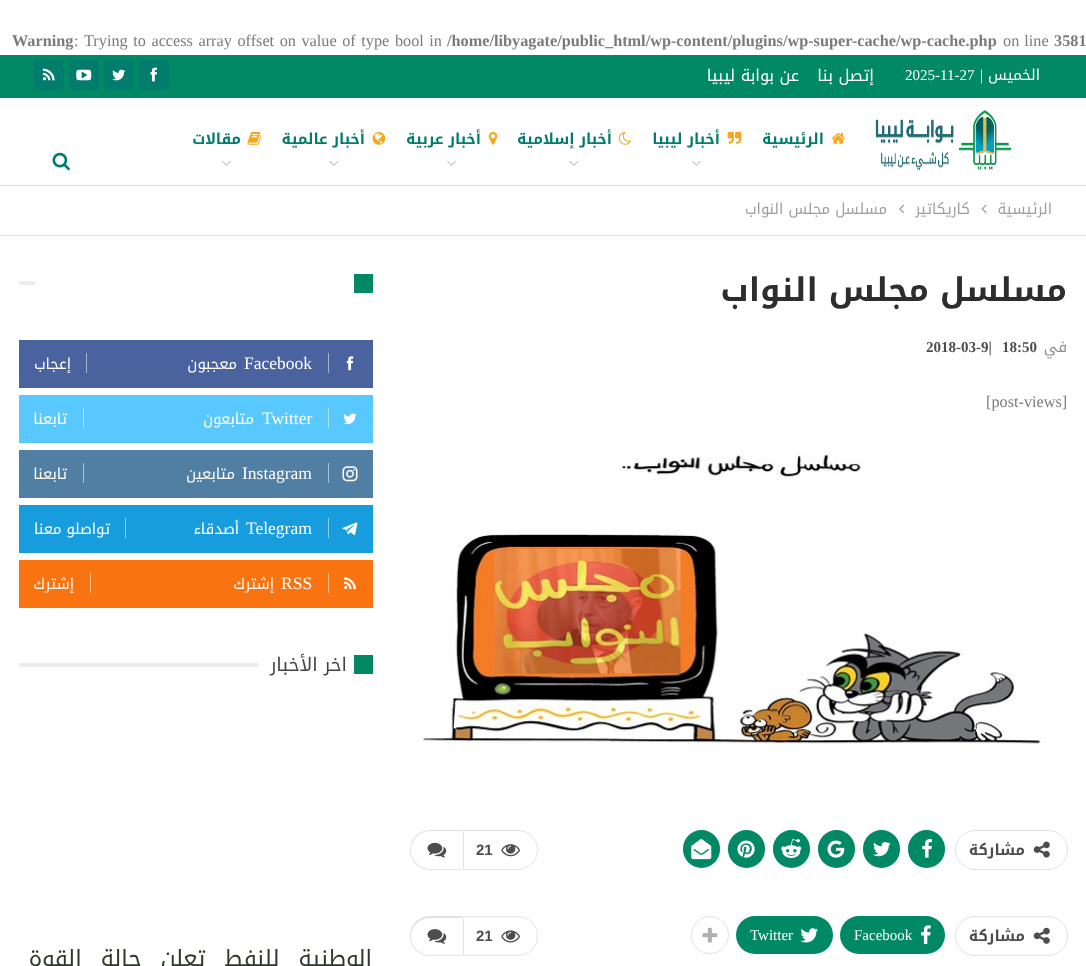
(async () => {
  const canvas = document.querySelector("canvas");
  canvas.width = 1086;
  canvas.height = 966;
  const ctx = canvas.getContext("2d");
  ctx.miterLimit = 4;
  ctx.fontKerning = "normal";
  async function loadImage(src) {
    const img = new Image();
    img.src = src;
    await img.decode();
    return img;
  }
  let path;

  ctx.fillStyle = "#ffffff";
  ctx.fillRect(0, 0, 1086, 966);
  ctx.fillStyle = "#dedede";
  ctx.fillRect(0, 185, 1086, 1);
  ctx.fillStyle = "#018965";
  ctx.fillRect(0, 55, 1086, 43);
  ctx.fillStyle = "#027c6c";
  ctx.beginPath();
  ctx.roundRect(139, 60, 30, 30, 4);
  ctx.fill();
  ctx.drawImage(await loadImage("img/1.png"), 150, 67, 7, 15);
  ctx.beginPath();
  ctx.roundRect(104, 60, 30, 30, 4);
  ctx.fill();
  ctx.drawImage(await loadImage("img/2.png"), 112, 69, 14, 12);
  ctx.beginPath();
  ctx.roundRect(69, 60, 30, 30, 4);
  ctx.fill();
  ctx.drawImage(await loadImage("img/3.png"), 76, 69, 16, 12);
  ctx.beginPath();
  ctx.roundRect(34, 60, 30, 30, 4);
  ctx.fill();
  ctx.drawImage(await loadImage("img/4.png"), 42, 68, 13, 13);
  ctx.drawImage(await loadImage("img/5.png"), 875, 110, 137, 61);
  ctx.drawImage(await loadImage("img/6.png"), 831, 133, 14, 11);
  ctx.drawImage(await loadImage("img/7.png"), 727, 131, 15, 13);
  ctx.drawImage(await loadImage("img/8.png"), 692, 160, 9, 6);
  ctx.drawImage(await loadImage("img/9.png"), 618, 132, 13, 13);
  ctx.drawImage(await loadImage("img/10.png"), 569, 160, 10, 6);
  ctx.drawImage(await loadImage("img/11.png"), 488, 132, 10, 13);
  ctx.drawImage(await loadImage("img/8.png"), 447, 160, 9, 6);
  ctx.drawImage(await loadImage("img/12.png"), 372, 132, 14, 13);
  ctx.drawImage(await loadImage("img/10.png"), 329, 160, 10, 6);
  ctx.drawImage(await loadImage("img/13.png"), 247, 131, 15, 14);
  ctx.drawImage(await loadImage("img/8.png"), 222, 160, 9, 6);
  ctx.drawImage(await loadImage("img/14.png"), 52, 152, 18, 19);
  ctx.fillStyle = "#e6e0d8";
  ctx.fillRect(0, 235, 1086, 1);
  ctx.drawImage(await loadImage("img/15.png"), 981, 204, 6, 9);
  ctx.drawImage(await loadImage("img/16.png"), 899, 204, 5, 9);
  ctx.drawImage(await loadImage("img/17.png"), 418, 450, 628, 295);
  ctx.beginPath();
  ctx.roundRect(955.5, 830.5, 112, 39, 19.5);
  ctx.strokeStyle = "#e2e2e2";
  ctx.stroke();
  ctx.drawImage(await loadImage("img/18.png"), 1033, 841, 17, 17);
  ctx.fillStyle = "#018965";
  ctx.beginPath();
  ctx.roundRect(908, 830, 37, 38, 18.5);
  ctx.fill();
  ctx.drawImage(await loadImage("img/19.png"), 922, 839, 10, 19);
  ctx.beginPath();
  ctx.roundRect(863, 830, 37, 38, 18.5);
  ctx.fill();
  ctx.drawImage(await loadImage("img/20.png"), 873, 842, 18, 15);
  ctx.beginPath();
  ctx.roundRect(818, 830, 37, 38, 18.5);
  ctx.fill();
  ctx.drawImage(await loadImage("img/21.png"), 827, 840, 18, 18);
  ctx.beginPath();
  ctx.roundRect(773, 830, 37, 38, 18.5);
  ctx.fill();
  ctx.drawImage(await loadImage("img/22.png"), 781, 839, 21, 19);
  ctx.beginPath();
  ctx.roundRect(728, 830, 37, 38, 18.5);
  ctx.fill();
  ctx.drawImage(await loadImage("img/23.png"), 737, 840, 18, 18);
  ctx.beginPath();
  ctx.roundRect(683, 830, 37, 38, 18.5);
  ctx.fill();
  ctx.drawImage(await loadImage("img/24.png"), 691, 839, 21, 21);
  ctx.beginPath();
  ctx.roundRect(463.5, 830.5, 74, 39, [0, 19.5, 19.5, 0]);
  ctx.stroke();
  ctx.drawImage(await loadImage("img/25.png"), 501, 844, 19, 13);
  ctx.fillStyle = "#e2e2e2";
  path = new Path2D("M430 830H462V870H430C419 870 410 861 410 850C410 839 419 830 430 830ZM430 831H462V869H430C420 869 411 860 411 850C411 840 420 831 430 831Z");
  ctx.fill(path, "evenodd");
  ctx.drawImage(await loadImage("img/26.png"), 427, 842, 20, 16);
  ctx.beginPath();
  ctx.roundRect(955.5, 916.5, 112, 39, 19.5);
  ctx.stroke();
  ctx.drawImage(await loadImage("img/27.png"), 1033, 927, 17, 17);
  ctx.fillStyle = "#018965";
  ctx.beginPath();
  ctx.roundRect(840, 916, 105, 38, 19);
  ctx.fill();
  ctx.drawImage(await loadImage("img/28.png"), 921, 925, 10, 19);
  ctx.beginPath();
  ctx.roundRect(736, 916, 97, 38, 19);
  ctx.fill();
  ctx.drawImage(await loadImage("img/29.png"), 800, 928, 18, 15);
  ctx.beginPath();
  ctx.arc(710, 935, 18.5, 0, Math.PI * 2);
  ctx.stroke();
  ctx.drawImage(await loadImage("img/30.png"), 702, 927, 16, 16);
  ctx.beginPath();
  ctx.roundRect(463.5, 916.5, 74, 39, [0, 19.5, 19.5, 0]);
  ctx.stroke();
  ctx.drawImage(await loadImage("img/31.png"), 501, 930, 19, 13);
  ctx.fillStyle = "#e2e2e2";
  path = new Path2D("M430 916H462V956H430C419 956 410 947 410 936C410 925 419 916 430 916ZM430 918H462V955H430C420 955 411 947 411 936C411 926 420 918 430 918Z");
  ctx.fill(path, "evenodd");
  ctx.drawImage(await loadImage("img/32.png"), 427, 929, 20, 15);
  for (const [x, y, w, h, color] of [
    [354, 274, 19, 19, "#018965"],
    [19, 281, 16, 4, "#ededed"],
    [19, 340, 354, 48, "#4a639f"],
  ]) {
    ctx.fillStyle = color;
    ctx.fillRect(x, y, w, h);
  }
  ctx.drawImage(await loadImage("img/33.png"), 346, 356, 8, 15);
  for (const [x, y, w, h, color] of [
    [328, 353, 1, 20, "#a5b1cf"],
    [86, 353, 1, 20, "#a5b1cf"],
    [19, 395, 354, 48, "#59c8ff"],
  ]) {
    ctx.fillStyle = color;
    ctx.fillRect(x, y, w, h);
  }
  ctx.drawImage(await loadImage("img/34.png"), 343, 413, 14, 12);
  for (const [x, y, w, h, color] of [
    [328, 408, 1, 20, "#ace4ff"],
    [83, 408, 1, 20, "#ace4ff"],
    [19, 450, 354, 48, "#517fa4"],
  ]) {
    ctx.fillStyle = color;
    ctx.fillRect(x, y, w, h);
  }
  ctx.drawImage(await loadImage("img/35.png"), 342, 466, 16, 16);
  for (const [x, y, w, h, color] of [
    [328, 463, 1, 20, "#a8bfd2"],
    [83, 463, 1, 20, "#a8bfd2"],
    [19, 505, 354, 48, "#179cde"],
  ]) {
    ctx.fillStyle = color;
    ctx.fillRect(x, y, w, h);
  }
  ctx.drawImage(await loadImage("img/36.png"), 342, 522, 16, 13);
  for (const [x, y, w, h, color] of [
    [328, 518, 1, 20, "#8bceef"],
    [125, 518, 1, 20, "#8bceef"],
    [19, 560, 354, 48, "#f97410"],
  ]) {
    ctx.fillStyle = color;
    ctx.fillRect(x, y, w, h);
  }
  ctx.drawImage(await loadImage("img/37.png"), 344, 577, 12, 13);
  for (const [x, y, w, h, color] of [
    [328, 573, 1, 20, "#fcba88"],
    [90, 573, 1, 20, "#fcba88"],
    [354, 655, 19, 19, "#018965"],
    [19, 663, 239, 4, "#ededed"],
  ]) {
    ctx.fillStyle = color;
    ctx.fillRect(x, y, w, h);
  }
  ctx.font = "bold 16.25px Liberation Serif";
  ctx.fillStyle = "#7b7b7b";
  ctx.fillText("3581", 1054, 46);
  ctx.wordSpacing = "1px";
  ctx.font = "16.25px Liberation Serif";
  ctx.fillText("on line", 1003, 46);
  ctx.wordSpacing = "0px";
  ctx.font = "bold 16.25px Liberation Serif";
  ctx.fillText("/home/libyagate/public_html/wp-content/plugins/wp-super-cache/wp-cache.php", 447, 46);
  ctx.wordSpacing = "1.5px";
  ctx.font = "16.25px Liberation Serif";
  ctx.fillText("Trying to access array offset on value of type bool in", 84, 46);
  ctx.wordSpacing = "0px";
  ctx.fillText(":", 74, 46);
  ctx.font = "bold 16.25px Liberation Serif";
  ctx.fillText("Warning", 12, 46);
  ctx.direction = "rtl";
  ctx.font = "15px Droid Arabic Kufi";
  ctx.fillStyle = "#ffffff";
  ctx.fillText("الخميس", 1040, 80);
  ctx.font = "15px Liberation Serif";
  ctx.fillText("|", 983, 80);
  ctx.direction = "ltr";
  ctx.fillText("2025-11-27", 905, 80);
  ctx.direction = "rtl";
  ctx.font = "16.25px Droid Arabic Kufi";
  ctx.fillText("إتصل بنا", 874, 81);
  ctx.fillText("عن بوابة ليبيا", 799, 81);
  ctx.font = "bold 15px Droid Arabic Kufi";
  ctx.fillStyle = "#027c6c";
  for (const [text, x, y] of [
    ["الرئيسية", 824, 144],
    ["أخبار ليبيا", 720, 144],
    ["أخبار إسلامية", 612, 144],
    ["أخبار عربية", 481, 144],
    ["أخبار عالمية", 365, 144],
    ["مقالات", 241, 144],
  ]) {
    ctx.fillText(text, x, y);
  }
  ctx.font = "15px Droid Arabic Kufi";
  ctx.fillStyle = "#9e9e9e";
  for (const [text, x, y] of [
    ["الرئيسية", 1052, 214],
    ["كاريكاتير", 970, 214],
    ["مسلسل مجلس النواب", 887, 214],
  ]) {
    ctx.fillText(text, x, y);
  }
  ctx.font = "bold 32.5px Droid Arabic Kufi";
  ctx.fillStyle = "#2d2d2d";
  ctx.fillText("مسلسل مجلس النواب", 1067, 301);
  ctx.font = "15px Droid Arabic Kufi";
  ctx.fillStyle = "#8f8f8f";
  ctx.fillText("في", 1067, 352);
  ctx.direction = "ltr";
  ctx.font = "bold 15px Liberation Serif";
  ctx.fillStyle = "#4d4d4d";
  ctx.fillText("18:50", 1002, 352);
  ctx.fillText("2018-03-9|", 926, 352);
  ctx.font = "16.25px Liberation Serif";
  ctx.fillStyle = "#7b7b7b";
  ctx.fillText("[post-views]", 986, 407);
  ctx.direction = "rtl";
  ctx.font = "bold 15px Droid Arabic Kufi";
  ctx.fillStyle = "#4d4d4d";
  ctx.fillText("مشاركة", 1025, 855);
  ctx.direction = "ltr";
  ctx.font = "bold 15px Liberation Sans";
  ctx.fillText("21", 476, 855);
  ctx.direction = "rtl";
  ctx.font = "bold 15px Droid Arabic Kufi";
  ctx.fillText("مشاركة", 1025, 941);
  ctx.direction = "ltr";
  ctx.font = "15px Liberation Serif";
  ctx.fillStyle = "#ffffff";
  ctx.fillText("Facebook", 854, 940);
  ctx.fillText("Twitter", 750, 940);
  ctx.font = "bold 15px Liberation Sans";
  ctx.fillStyle = "#4d4d4d";
  ctx.fillText("21", 476, 941);
  ctx.font = "17.5px Liberation Serif";
  ctx.fillStyle = "#ffffff";
  ctx.fillText("Facebook", 244, 369);
  ctx.direction = "rtl";
  ctx.font = "15px Droid Arabic Kufi";
  ctx.fillText("معجبون", 237, 369);
  ctx.fillText("إعجاب", 71, 369);
  ctx.direction = "ltr";
  ctx.font = "17.5px Liberation Serif";
  ctx.fillText("Twitter", 262, 424);
  ctx.direction = "rtl";
  ctx.font = "15px Droid Arabic Kufi";
  ctx.fillText("متابعون", 254, 424);
  ctx.fillText("تابعنا", 67, 424);
  ctx.direction = "ltr";
  ctx.font = "17.5px Liberation Serif";
  ctx.fillText("Instagram", 242, 479);
  ctx.direction = "rtl";
  ctx.font = "15px Droid Arabic Kufi";
  ctx.fillText("متابعين", 235, 479);
  ctx.fillText("تابعنا", 67, 479);
  ctx.direction = "ltr";
  ctx.font = "17.5px Liberation Serif";
  ctx.fillText("Telegram", 246, 534);
  ctx.direction = "rtl";
  ctx.font = "15px Droid Arabic Kufi";
  ctx.fillText("أصدقاء", 239, 534);
  ctx.fillText("تواصلو معنا", 110, 534);
  ctx.direction = "ltr";
  ctx.font = "17.5px Liberation Serif";
  ctx.fillText("RSS", 281, 589);
  ctx.direction = "rtl";
  ctx.font = "15px Droid Arabic Kufi";
  ctx.fillText("إشترك", 274, 589);
  ctx.fillText("إشترك", 74, 589);
  ctx.font = "18.75px Droid Arabic Kufi";
  ctx.fillStyle = "#444444";
  ctx.fillText("اخر الأخبار", 347, 671);
  ctx.letterSpacing = "0.4px";
  ctx.wordSpacing = "11px";
  ctx.font = "22.5px Droid Arabic Kufi";
  ctx.fillStyle = "#31362b";
  ctx.fillText("الوطنية للنفط تعلن حالة القوة", 372, 966);
})();
